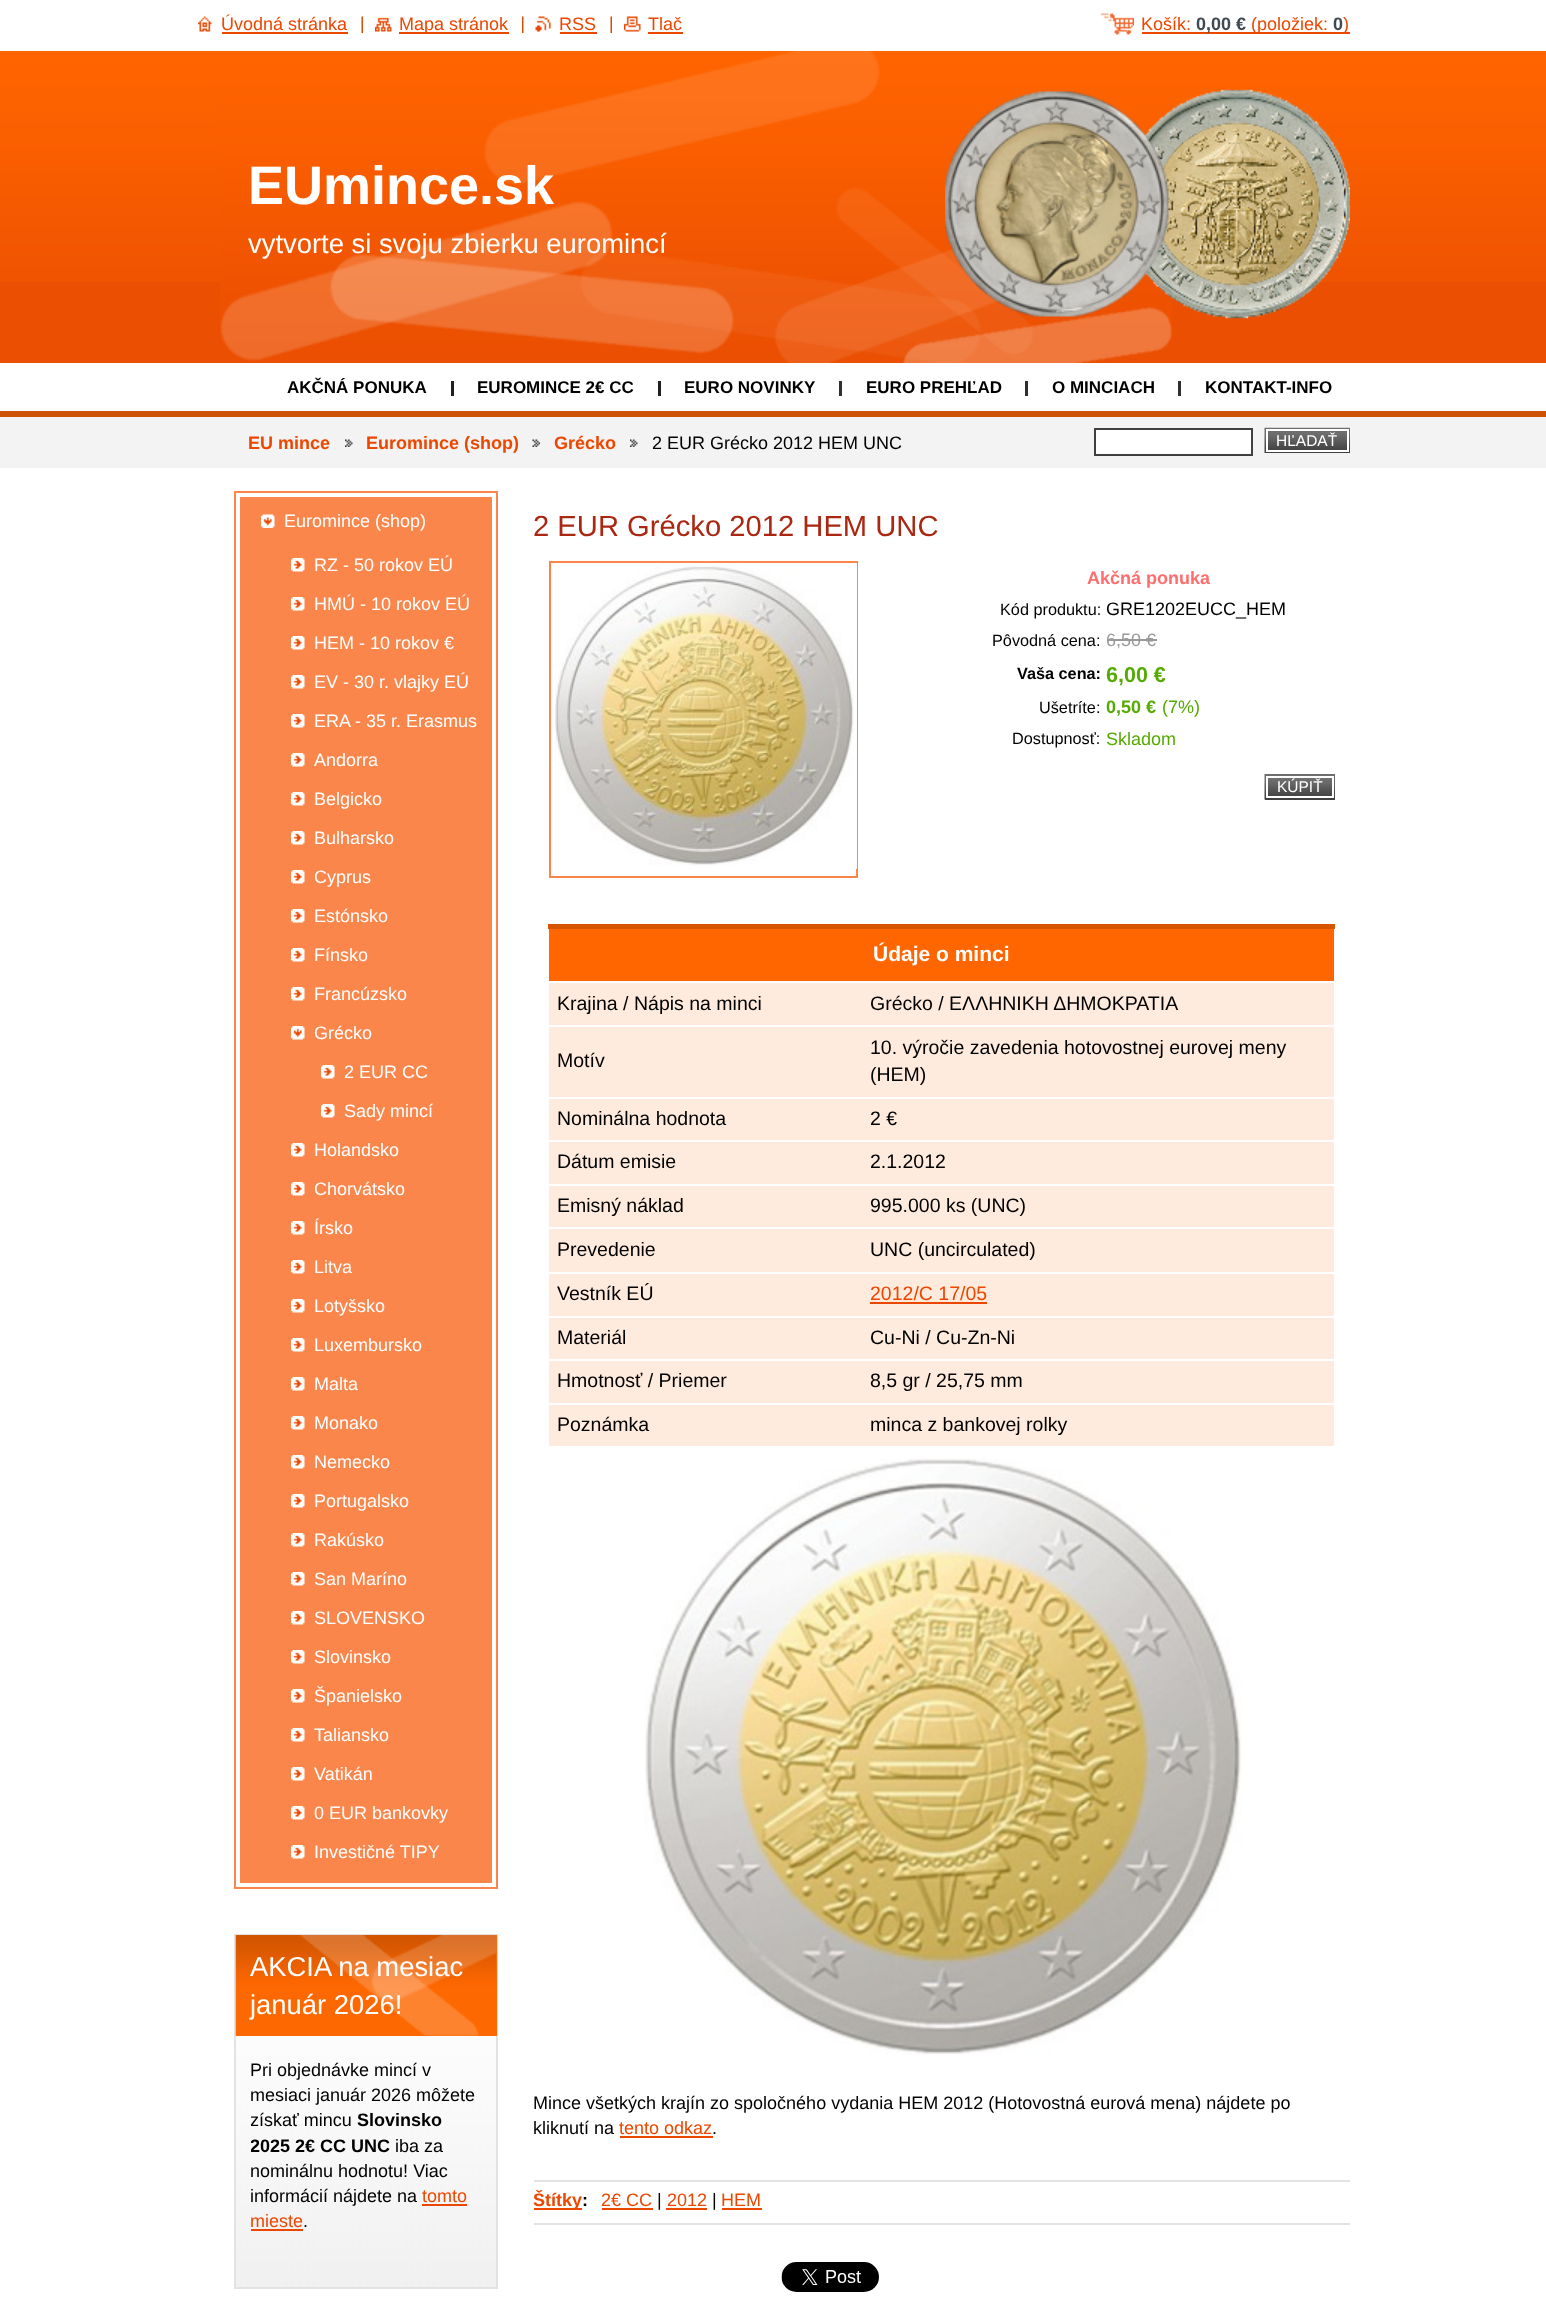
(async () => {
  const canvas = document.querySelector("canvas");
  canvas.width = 1546;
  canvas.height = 2305;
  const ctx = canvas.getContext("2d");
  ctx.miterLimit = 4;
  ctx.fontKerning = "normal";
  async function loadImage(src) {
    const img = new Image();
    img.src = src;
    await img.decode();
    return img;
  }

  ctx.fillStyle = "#ffffff";
  ctx.fillRect(0, 0, 1546, 2305);
  ctx.drawImage(await loadImage("img/1.png"), 198, 16, 14, 16);
  ctx.fillStyle = "#ec4700";
  ctx.fillRect(222, 32, 126, 2);
  ctx.drawImage(await loadImage("img/2.png"), 361, 16, 2, 17);
  ctx.drawImage(await loadImage("img/3.png"), 375, 17, 17, 15);
  ctx.fillRect(399, 32, 110, 2);
  ctx.drawImage(await loadImage("img/4.png"), 522, 16, 2, 17);
  ctx.drawImage(await loadImage("img/5.png"), 535, 16, 16, 16);
  ctx.fillRect(560, 32, 37, 2);
  ctx.drawImage(await loadImage("img/2.png"), 610, 16, 2, 17);
  ctx.drawImage(await loadImage("img/6.png"), 624, 16, 17, 16);
  ctx.fillRect(648, 32, 35, 2);
  ctx.drawImage(await loadImage("img/7.png"), 1101, 13, 33, 22);
  ctx.fillRect(1142, 32, 208, 2);
  ctx.fillStyle = "#eb4f01";
  ctx.fillRect(0, 282, 1546, 81);
  ctx.drawImage(await loadImage("img/8.png"), 0, 51, 1546, 231);
  ctx.drawImage(await loadImage("img/9.png"), 220, 51, 952, 312);
  ctx.drawImage(await loadImage("img/10.png"), 945, 89, 405, 230);
  for (const [x, y, w, h, color] of [
    [451, 381, 3, 15, "#1f1f1f"],
    [658, 381, 3, 15, "#1f1f1f"],
    [839, 381, 3, 15, "#2f2f2f"],
    [1025, 381, 3, 15, "#2f2f2f"],
    [1178, 381, 3, 15, "#2f2f2f"],
    [0, 417, 1546, 51, "#f3f3f3"],
    [0, 411, 1546, 6, "#ce5102"],
  ]) {
    ctx.fillStyle = color;
    ctx.fillRect(x, y, w, h);
  }
  ctx.drawImage(await loadImage("img/11.png"), 345, 439, 8, 8);
  ctx.drawImage(await loadImage("img/12.png"), 532, 439, 8, 8);
  ctx.drawImage(await loadImage("img/13.png"), 630, 439, 8, 8);
  ctx.fillStyle = "#ffffff";
  ctx.beginPath();
  ctx.rect(1095, 429, 157, 26);
  ctx.fill();
  ctx.strokeStyle = "#404040";
  ctx.lineWidth = 2;
  ctx.stroke();
  ctx.drawImage(await loadImage("img/14.png"), 1264, 427, 86, 26);
  ctx.drawImage(await loadImage("img/15.png"), 1268, 431, 79, 19);
  ctx.strokeStyle = "#ffffff";
  ctx.strokeRect(1267, 430, 81, 21);
  ctx.strokeStyle = "#fb864b";
  ctx.strokeRect(235, 492, 262, 1396);
  ctx.fillStyle = "#fb864b";
  ctx.fillRect(240, 497, 252, 1386);
  ctx.drawImage(await loadImage("img/16.png"), 261, 514, 14, 14);
  ctx.drawImage(await loadImage("img/17.png"), 291, 558, 14, 14);
  ctx.drawImage(await loadImage("img/17.png"), 291, 597, 14, 14);
  ctx.drawImage(await loadImage("img/17.png"), 291, 636, 14, 14);
  ctx.drawImage(await loadImage("img/17.png"), 291, 675, 14, 14);
  ctx.drawImage(await loadImage("img/17.png"), 291, 714, 14, 14);
  ctx.drawImage(await loadImage("img/17.png"), 291, 753, 14, 14);
  ctx.drawImage(await loadImage("img/17.png"), 291, 792, 14, 14);
  ctx.drawImage(await loadImage("img/17.png"), 291, 831, 14, 14);
  ctx.drawImage(await loadImage("img/17.png"), 291, 870, 14, 14);
  ctx.drawImage(await loadImage("img/17.png"), 291, 909, 14, 14);
  ctx.drawImage(await loadImage("img/17.png"), 291, 948, 14, 14);
  ctx.drawImage(await loadImage("img/17.png"), 291, 987, 14, 14);
  ctx.drawImage(await loadImage("img/18.png"), 291, 1026, 14, 14);
  ctx.drawImage(await loadImage("img/17.png"), 321, 1065, 14, 14);
  ctx.drawImage(await loadImage("img/17.png"), 321, 1104, 14, 14);
  ctx.drawImage(await loadImage("img/17.png"), 291, 1143, 14, 14);
  ctx.drawImage(await loadImage("img/17.png"), 291, 1182, 14, 14);
  ctx.drawImage(await loadImage("img/17.png"), 291, 1221, 14, 14);
  ctx.drawImage(await loadImage("img/17.png"), 291, 1260, 14, 14);
  ctx.drawImage(await loadImage("img/17.png"), 291, 1299, 14, 14);
  ctx.drawImage(await loadImage("img/17.png"), 291, 1338, 14, 14);
  ctx.drawImage(await loadImage("img/17.png"), 291, 1377, 14, 14);
  ctx.drawImage(await loadImage("img/17.png"), 291, 1416, 14, 14);
  ctx.drawImage(await loadImage("img/17.png"), 291, 1455, 14, 14);
  ctx.drawImage(await loadImage("img/17.png"), 291, 1494, 14, 14);
  ctx.drawImage(await loadImage("img/17.png"), 291, 1533, 14, 14);
  ctx.drawImage(await loadImage("img/17.png"), 291, 1572, 14, 14);
  ctx.drawImage(await loadImage("img/17.png"), 291, 1611, 14, 14);
  ctx.drawImage(await loadImage("img/17.png"), 291, 1650, 14, 14);
  ctx.drawImage(await loadImage("img/17.png"), 291, 1689, 14, 14);
  ctx.drawImage(await loadImage("img/17.png"), 291, 1728, 14, 14);
  ctx.drawImage(await loadImage("img/17.png"), 291, 1767, 14, 14);
  ctx.drawImage(await loadImage("img/17.png"), 291, 1806, 14, 14);
  ctx.drawImage(await loadImage("img/17.png"), 291, 1845, 14, 14);
  ctx.drawImage(await loadImage("img/19.png"), 236, 2036, 260, 251);
  ctx.strokeStyle = "#e3e3e3";
  ctx.strokeRect(235, 1935, 262, 353);
  ctx.fillStyle = "#fe6801";
  ctx.fillRect(236, 1935, 261, 101);
  ctx.drawImage(await loadImage("img/20.png"), 235, 1935, 262, 101);
  ctx.fillStyle = "#ec4700";
  ctx.fillRect(422, 2204, 45, 2);
  ctx.fillRect(251, 2229, 52, 2);
  ctx.strokeStyle = "#fb864b";
  ctx.strokeRect(550, 562, 307, 315);
  ctx.strokeStyle = "#ffffff";
  ctx.lineWidth = 3;
  ctx.strokeRect(552.5, 564.5, 303, 303);
  ctx.drawImage(await loadImage("img/21.png"), 554, 566, 300, 300);
  ctx.fillStyle = "#999999";
  ctx.fillRect(1107, 639, 50, 2);
  ctx.fillStyle = "#404040";
  ctx.fillRect(1265, 799, 70, 1);
  ctx.drawImage(await loadImage("img/22.png"), 1264, 774, 71, 26);
  ctx.drawImage(await loadImage("img/23.png"), 1268, 778, 64, 18);
  ctx.lineWidth = 2;
  ctx.strokeRect(1267, 777, 66, 20);
  for (const [x, y, w, h, color] of [
    [549, 929, 785, 52, "#ff6600"],
    [548, 924, 787, 5, "#d55500"],
    [549, 983, 785, 42, "#ffebdd"],
    [549, 1027, 785, 70, "#ffebdd"],
    [549, 1099, 785, 41, "#ffebdd"],
    [549, 1142, 785, 42, "#ffebdd"],
    [549, 1186, 785, 41, "#ffebdd"],
    [549, 1229, 785, 43, "#ffebdd"],
    [549, 1274, 785, 42, "#ffebdd"],
    [870, 1302, 117, 2, "#ec4700"],
    [549, 1318, 785, 41, "#ffebdd"],
    [549, 1361, 785, 42, "#ffebdd"],
    [549, 1405, 785, 41, "#ffebdd"],
  ]) {
    ctx.fillStyle = color;
    ctx.fillRect(x, y, w, h);
  }
  ctx.drawImage(await loadImage("img/24.png"), 644, 1458, 598, 597);
  for (const [x, y, w, h, color] of [
    [620, 2136, 93, 2, "#ec4700"],
    [534, 2180, 816, 2, "#e3e3e3"],
    [534, 2223, 816, 2, "#e3e3e3"],
    [534, 2208, 48, 2, "#ec4700"],
    [602, 2208, 51, 2, "#ec4700"],
    [666, 2208, 41, 2, "#ec4700"],
    [722, 2208, 40, 2, "#ec4700"],
  ]) {
    ctx.fillStyle = color;
    ctx.fillRect(x, y, w, h);
  }
  ctx.drawImage(await loadImage("img/25.png"), 781, 2262, 98, 30);
  ctx.font = "18px Liberation Sans";
  for (const [text, x, y] of [
    ["Úvodná stránka", 221, 30],
    ["Mapa stránok", 399, 30],
    ["RSS", 559, 30],
    ["Tlač", 648, 30],
    ["Košík:", 1141, 30],
  ]) {
    ctx.fillText(text, x, y);
  }
  ctx.font = "bold 18px Liberation Sans";
  ctx.fillStyle = "#3e4951";
  ctx.fillText("0,00 €", 1196, 30);
  ctx.font = "18px Liberation Sans";
  ctx.fillStyle = "#ec4700";
  ctx.fillText("(položiek:", 1251, 30);
  ctx.font = "bold 18px Liberation Sans";
  ctx.fillStyle = "#3e4951";
  ctx.fillText("0", 1333, 30);
  ctx.font = "18px Liberation Sans";
  ctx.fillStyle = "#ec4700";
  ctx.fillText(")", 1343, 30);
  ctx.font = "bold 54px Liberation Sans";
  ctx.fillStyle = "#ffffff";
  ctx.fillText("EUmince.sk", 248, 204);
  ctx.font = "27.4px Liberation Sans";
  ctx.fillText("vytvorte si svoju zbierku euromincí", 248, 253);
  ctx.font = "bold 17px Liberation Sans";
  ctx.fillStyle = "#000000";
  for (const [text, x, y] of [
    ["AKČNÁ PONUKA", 287, 393],
    ["EUROMINCE 2€ CC", 477, 393],
    ["EURO NOVINKY", 684, 393],
    ["EURO PREHĽAD", 866, 393],
    ["O MINCIACH", 1052, 393],
    ["KONTAKT-INFO", 1205, 393],
  ]) {
    ctx.fillText(text, x, y);
  }
  ctx.font = "bold 18px Liberation Sans";
  ctx.fillStyle = "#ec4700";
  for (const [text, x, y] of [
    ["EU mince", 248, 449],
    ["Euromince (shop)", 366, 449],
    ["Grécko", 554, 449],
  ]) {
    ctx.fillText(text, x, y);
  }
  ctx.font = "18px Liberation Sans";
  ctx.fillStyle = "#000000";
  ctx.fillText("2 EUR Grécko 2012 HEM UNC", 652, 449);
  ctx.font = "15.5px Liberation Sans";
  ctx.fillStyle = "#ffffff";
  ctx.fillText("HĽADAŤ", 1276, 446);
  ctx.font = "18px Liberation Sans";
  for (const [text, x, y] of [
    ["Euromince (shop)", 284, 527],
    ["RZ - 50 rokov EÚ", 314, 571],
    ["HMÚ - 10 rokov EÚ", 314, 610],
    ["HEM - 10 rokov €", 314, 649],
    ["EV - 30 r. vlajky EÚ", 314, 688],
    ["ERA - 35 r. Erasmus", 314, 727],
    ["Andorra", 314, 766],
    ["Belgicko", 314, 805],
    ["Bulharsko", 314, 844],
    ["Cyprus", 314, 883],
    ["Estónsko", 314, 922],
    ["Fínsko", 314, 961],
    ["Francúzsko", 314, 1000],
    ["Grécko", 314, 1039],
    ["2 EUR CC", 344, 1078],
    ["Sady mincí", 344, 1117],
    ["Holandsko", 314, 1156],
    ["Chorvátsko", 314, 1195],
    ["Írsko", 314, 1234],
    ["Litva", 314, 1273],
    ["Lotyšsko", 314, 1312],
    ["Luxembursko", 314, 1351],
    ["Malta", 314, 1390],
    ["Monako", 314, 1429],
    ["Nemecko", 314, 1468],
    ["Portugalsko", 314, 1507],
    ["Rakúsko", 314, 1546],
    ["San Maríno", 314, 1585],
    ["SLOVENSKO", 314, 1624],
    ["Slovinsko", 314, 1663],
    ["Španielsko", 314, 1702],
    ["Taliansko", 314, 1741],
    ["Vatikán", 314, 1780],
    ["0 EUR bankovky", 314, 1819],
    ["Investičné TIPY", 314, 1858],
  ]) {
    ctx.fillText(text, x, y);
  }
  ctx.font = "27.4px Liberation Sans";
  ctx.fillText("AKCIA na mesiac", 250, 1976);
  ctx.fillText("január 2026!", 250, 2014);
  ctx.font = "18px Liberation Sans";
  ctx.fillStyle = "#000000";
  ctx.fillText("Pri objednávke mincí v", 250, 2076);
  ctx.fillText("mesiaci január 2026 môžete", 250, 2101);
  ctx.save();
  ctx.beginPath();
  ctx.rect(251, 2058, 231, 177);
  ctx.clip();
  ctx.fillText("získať mincu", 250, 2126);
  ctx.restore();
  ctx.font = "bold 18px Liberation Sans";
  ctx.fillText("Slovinsko", 357, 2126);
  ctx.save();
  ctx.beginPath();
  ctx.rect(251, 2058, 231, 177);
  ctx.clip();
  ctx.fillText("2025 2€ CC UNC", 250, 2152);
  ctx.restore();
  ctx.font = "18px Liberation Sans";
  for (const [text, x, y] of [
    ["iba za", 395, 2152],
    ["nominálnu hodnotu! Viac", 250, 2177],
    ["informácií nájdete na", 250, 2202],
  ]) {
    ctx.fillText(text, x, y);
  }
  ctx.fillStyle = "#ec4700";
  ctx.fillText("tomto", 422, 2202);
  ctx.fillText("mieste", 250, 2227);
  ctx.fillStyle = "#000000";
  ctx.fillText(".", 303, 2227);
  ctx.font = "29.2px Liberation Sans";
  ctx.fillStyle = "#aa2712";
  ctx.fillText("2 EUR Grécko 2012 HEM UNC", 533, 536);
  ctx.font = "bold 18px Liberation Sans";
  ctx.fillStyle = "#ff6e6e";
  ctx.fillText("Akčná ponuka", 1087, 584);
  ctx.font = "16.25px Liberation Sans";
  ctx.fillStyle = "#000000";
  ctx.fillText("Kód produktu:", 1000, 615);
  ctx.font = "18px Liberation Sans";
  ctx.fillText("GRE1202EUCC_HEM", 1106, 615);
  ctx.font = "16.25px Liberation Sans";
  ctx.fillText("Pôvodná cena:", 992, 646);
  ctx.font = "18px Liberation Sans";
  ctx.fillStyle = "#999999";
  ctx.fillText("6,50 €", 1106, 646);
  ctx.font = "bold 16.25px Liberation Sans";
  ctx.fillStyle = "#000000";
  ctx.fillText("Vaša cena:", 1017, 679);
  ctx.font = "bold 21.5px Liberation Sans";
  ctx.fillStyle = "#56aa04";
  ctx.fillText("6,00 €", 1106, 682);
  ctx.font = "16.25px Liberation Sans";
  ctx.fillStyle = "#000000";
  ctx.fillText("Ušetríte:", 1039, 713);
  ctx.font = "bold 18px Liberation Sans";
  ctx.fillStyle = "#56aa04";
  ctx.fillText("0,50 €", 1106, 713);
  ctx.font = "18px Liberation Sans";
  ctx.fillText("(7%)", 1162, 713);
  ctx.font = "16.25px Liberation Sans";
  ctx.fillStyle = "#000000";
  ctx.fillText("Dostupnosť:", 1012, 744);
  ctx.font = "18px Liberation Sans";
  ctx.fillStyle = "#56aa04";
  ctx.fillText("Skladom", 1106, 745);
  ctx.font = "15.5px Liberation Sans";
  ctx.fillStyle = "#ffffff";
  ctx.fillText("KÚPIŤ", 1277, 792);
  ctx.font = "bold 21px Liberation Sans";
  ctx.fillText("Údaje o minci", 873, 961);
  ctx.font = "19.5px Liberation Sans";
  ctx.fillStyle = "#000000";
  for (const [text, x, y] of [
    ["Krajina / Nápis na minci", 557, 1010],
    ["Grécko / ΕΛΛΗΝΙΚΗ ΔΗΜΟΚΡΑΤΙΑ", 870, 1010],
    ["Motív", 557, 1067],
    ["10. výročie zavedenia hotovostnej eurovej meny", 870, 1054],
    ["(HEM)", 870, 1081],
    ["Nominálna hodnota", 557, 1125],
    ["2 €", 870, 1125],
    ["Dátum emisie", 557, 1168],
    ["2.1.2012", 870, 1168],
    ["Emisný náklad", 557, 1212],
    ["995.000 ks (UNC)", 870, 1212],
    ["Prevedenie", 557, 1256],
    ["UNC (uncirculated)", 870, 1256],
    ["Vestník EÚ", 557, 1300],
  ]) {
    ctx.fillText(text, x, y);
  }
  ctx.fillStyle = "#ec4700";
  ctx.fillText("2012/C 17/05", 870, 1300);
  ctx.fillStyle = "#000000";
  for (const [text, x, y] of [
    ["Materiál", 557, 1344],
    ["Cu-Ni / Cu-Zn-Ni", 870, 1344],
    ["Hmotnosť / Priemer", 557, 1387],
    ["8,5 gr / 25,75 mm", 870, 1387],
    ["Poznámka", 557, 1431],
    ["minca z bankovej rolky", 870, 1431],
  ]) {
    ctx.fillText(text, x, y);
  }
  ctx.font = "18px Liberation Sans";
  ctx.fillText("Mince všetkých krajín zo spoločného vydania HEM 2012 (Hotovostná eurová mena) nájdete po", 533, 2109);
  ctx.fillText("kliknutí na", 533, 2134);
  ctx.fillStyle = "#ec4700";
  ctx.fillText("tento odkaz", 619, 2134);
  ctx.fillStyle = "#000000";
  ctx.fillText(".", 712, 2134);
  ctx.font = "bold 18px Liberation Sans";
  ctx.fillStyle = "#ec4700";
  ctx.fillText("Štítky", 533, 2206);
  ctx.fillStyle = "#000000";
  ctx.fillText(":", 582, 2206);
  ctx.font = "18px Liberation Sans";
  ctx.fillStyle = "#ec4700";
  ctx.fillText("2€ CC", 601, 2206);
  ctx.fillStyle = "#000000";
  ctx.fillText("|", 657, 2206);
  ctx.fillStyle = "#ec4700";
  ctx.fillText("2012", 667, 2206);
  ctx.fillStyle = "#000000";
  ctx.fillText("|", 712, 2206);
  ctx.fillStyle = "#ec4700";
  ctx.fillText("HEM", 721, 2206);
})();
